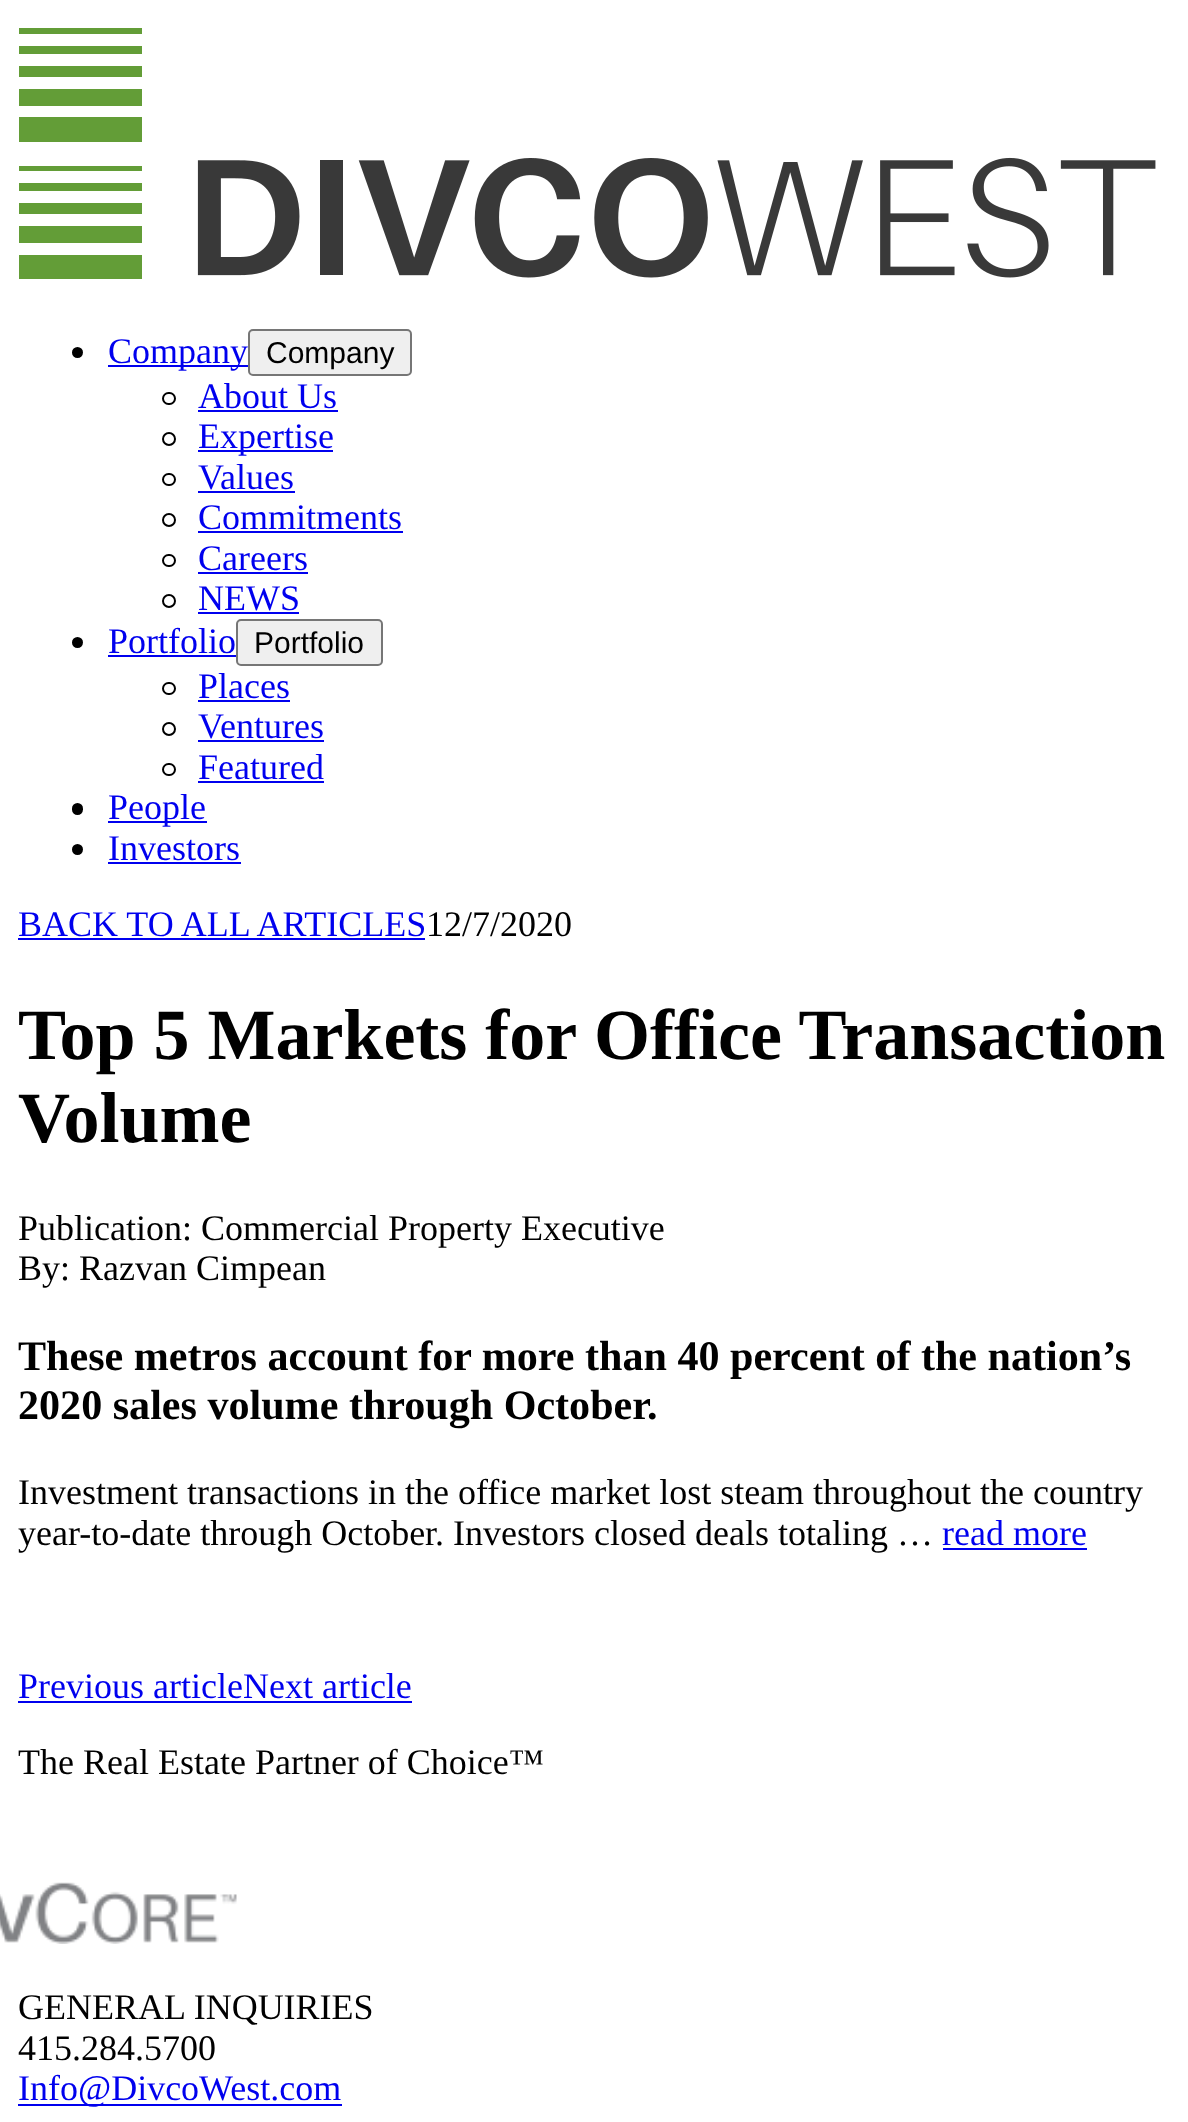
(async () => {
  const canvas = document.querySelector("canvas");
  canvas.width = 1188;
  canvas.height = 2122;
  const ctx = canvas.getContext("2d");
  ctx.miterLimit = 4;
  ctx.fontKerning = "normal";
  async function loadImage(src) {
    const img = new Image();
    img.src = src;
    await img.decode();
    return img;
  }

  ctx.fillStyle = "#ffffff";
  ctx.fillRect(0, 0, 1188, 2122);
  ctx.drawImage(await loadImage("img/1.png"), 19, 28, 123, 114);
  ctx.drawImage(await loadImage("img/2.png"), 19, 157, 1137, 122);
  ctx.fillStyle = "#000000";
  ctx.beginPath();
  ctx.arc(77.5, 352.5, 5.5, 0, Math.PI * 2);
  ctx.fill();
  ctx.fillStyle = "#0000ee";
  ctx.fillRect(108, 365, 140, 2);
  ctx.fillStyle = "#efefef";
  ctx.beginPath();
  ctx.roundRect(249, 330, 162, 45, 4);
  ctx.fill();
  ctx.strokeStyle = "#767676";
  ctx.lineWidth = 2;
  ctx.stroke();
  ctx.beginPath();
  ctx.roundRect(163, 393, 12, 11, 5.5);
  ctx.strokeStyle = "#000000";
  ctx.stroke();
  ctx.fillStyle = "#0000ee";
  ctx.fillRect(198, 410, 140, 2);
  ctx.beginPath();
  ctx.arc(169, 439, 6, 0, Math.PI * 2);
  ctx.stroke();
  ctx.fillRect(198, 450, 135, 2);
  ctx.beginPath();
  ctx.roundRect(163, 474, 12, 11, 5.5);
  ctx.stroke();
  ctx.fillRect(198, 491, 97, 2);
  ctx.beginPath();
  ctx.arc(169, 520, 6, 0, Math.PI * 2);
  ctx.stroke();
  ctx.fillRect(198, 531, 205, 2);
  ctx.beginPath();
  ctx.roundRect(163, 555, 12, 11, 5.5);
  ctx.stroke();
  ctx.fillRect(198, 572, 110, 2);
  ctx.beginPath();
  ctx.arc(169, 601, 6, 0, Math.PI * 2);
  ctx.stroke();
  ctx.fillRect(198, 612, 101, 2);
  ctx.fillStyle = "#000000";
  ctx.beginPath();
  ctx.arc(77.5, 642.5, 5.5, 0, Math.PI * 2);
  ctx.fill();
  ctx.fillStyle = "#0000ee";
  ctx.fillRect(108, 655, 128, 2);
  ctx.fillStyle = "#efefef";
  ctx.beginPath();
  ctx.roundRect(237, 620, 145, 45, 4);
  ctx.fill();
  ctx.strokeStyle = "#767676";
  ctx.stroke();
  ctx.beginPath();
  ctx.roundRect(163, 683, 12, 11, 5.5);
  ctx.strokeStyle = "#000000";
  ctx.stroke();
  ctx.fillStyle = "#0000ee";
  ctx.fillRect(198, 700, 92, 2);
  ctx.beginPath();
  ctx.arc(169, 729, 6, 0, Math.PI * 2);
  ctx.stroke();
  ctx.fillRect(198, 740, 126, 2);
  ctx.beginPath();
  ctx.roundRect(163, 764, 12, 11, 5.5);
  ctx.stroke();
  ctx.fillRect(198, 781, 126, 2);
  ctx.fillStyle = "#000000";
  ctx.beginPath();
  ctx.roundRect(72, 803, 11, 12, 5.5);
  ctx.fill();
  ctx.fillStyle = "#0000ee";
  ctx.fillRect(108, 821, 99, 2);
  ctx.fillStyle = "#000000";
  ctx.beginPath();
  ctx.arc(77.5, 849.5, 5.5, 0, Math.PI * 2);
  ctx.fill();
  for (const [x, y, w, h, color] of [
    [108, 862, 133, 2, "#0000ee"],
    [18, 938, 407, 2, "#0000ee"],
    [943, 1548, 144, 2, "#0000ee"],
    [18, 1701, 394, 2, "#0000ee"],
  ]) {
    ctx.fillStyle = color;
    ctx.fillRect(x, y, w, h);
  }
  ctx.drawImage(await loadImage("img/3.png"), 0, 1882, 237, 62);
  ctx.fillRect(18, 2104, 324, 2);
  ctx.font = "36px Liberation Serif";
  ctx.fillText("Company", 108, 363);
  ctx.font = "30px Liberation Sans";
  ctx.fillStyle = "#000000";
  ctx.fillText("Company", 266, 363);
  ctx.font = "36px Liberation Serif";
  ctx.fillStyle = "#0000ee";
  for (const [text, x, y] of [
    ["About Us", 198, 408],
    ["Expertise", 198, 448],
    ["Values", 198, 489],
    ["Commitments", 198, 529],
    ["Careers", 198, 570],
    ["NEWS", 198, 610],
    ["Portfolio", 108, 653],
  ]) {
    ctx.fillText(text, x, y);
  }
  ctx.font = "30px Liberation Sans";
  ctx.fillStyle = "#000000";
  ctx.fillText("Portfolio", 254, 653);
  ctx.font = "36px Liberation Serif";
  ctx.fillStyle = "#0000ee";
  for (const [text, x, y] of [
    ["Places", 198, 698],
    ["Ventures", 198, 738],
    ["Featured", 198, 779],
    ["People", 108, 819],
    ["Investors", 108, 860],
    ["BACK TO ALL ARTICLES", 18, 936],
  ]) {
    ctx.fillText(text, x, y);
  }
  ctx.fillStyle = "#000000";
  ctx.fillText("12/7/2020", 426, 936);
  ctx.font = "bold 72px Liberation Serif";
  ctx.fillText("Top 5 Markets for Office Transaction", 18, 1059);
  ctx.fillText("Volume", 18, 1142);
  ctx.font = "36px Liberation Serif";
  ctx.fillText("Publication: Commercial Property Executive", 18, 1240);
  ctx.fillText("By: Razvan Cimpean", 18, 1280);
  ctx.font = "bold 42.1px Liberation Serif";
  ctx.fillText("These metros account for more than 40 percent of the nation’s", 18, 1370);
  ctx.fillText("2020 sales volume through October.", 18, 1419);
  ctx.font = "36px Liberation Serif";
  ctx.fillText("Investment transactions in the office market lost steam throughout the country", 18, 1504);
  ctx.fillText("year-to-date through October. Investors closed deals totaling …", 18, 1545);
  ctx.fillStyle = "#0000ee";
  ctx.fillText("read more", 942, 1545);
  ctx.fillText("Previous articleNext article", 18, 1698);
  ctx.fillStyle = "#000000";
  for (const [text, x, y] of [
    ["The Real Estate Partner of Choice™", 18, 1774],
    ["GENERAL INQUIRIES", 18, 2019],
    ["415.284.5700", 18, 2060],
  ]) {
    ctx.fillText(text, x, y);
  }
  ctx.fillStyle = "#0000ee";
  ctx.fillText("Info@DivcoWest.com", 18, 2100);
})();
